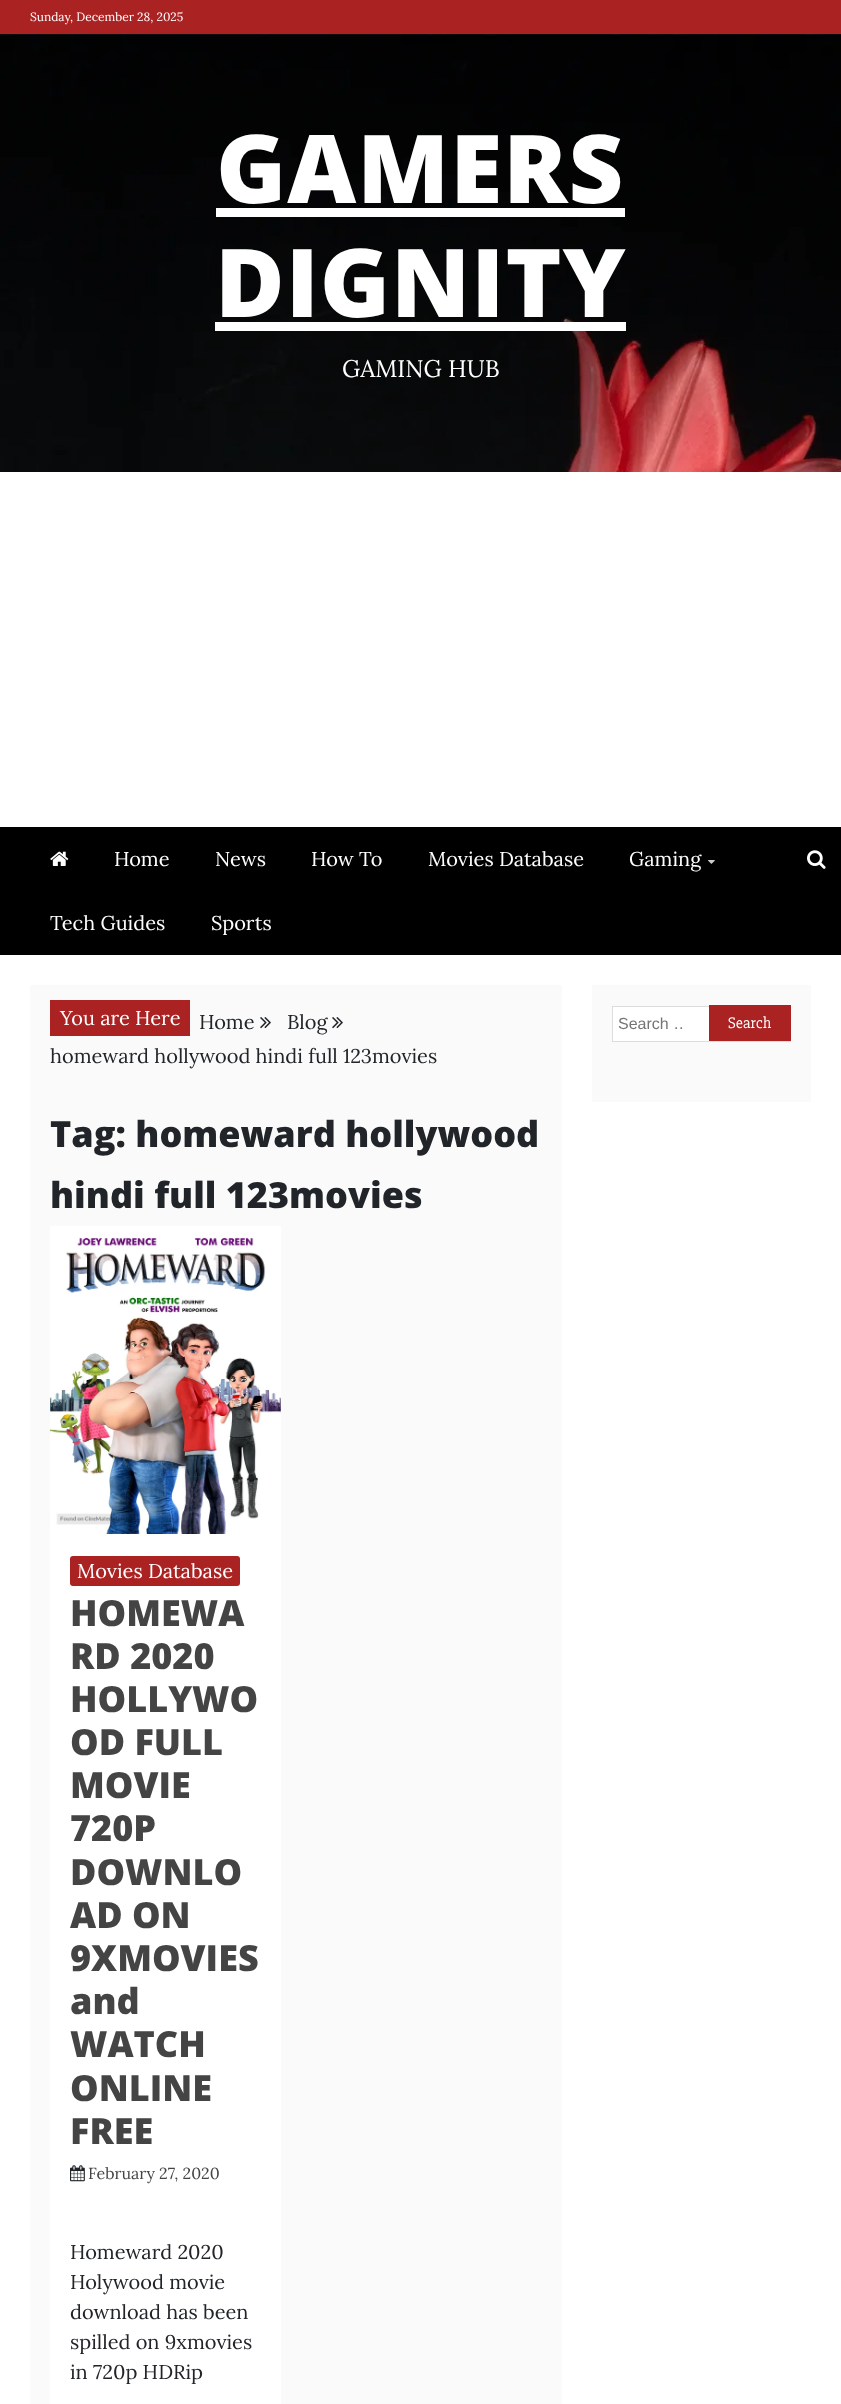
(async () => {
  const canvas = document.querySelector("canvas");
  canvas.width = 841;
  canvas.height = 2404;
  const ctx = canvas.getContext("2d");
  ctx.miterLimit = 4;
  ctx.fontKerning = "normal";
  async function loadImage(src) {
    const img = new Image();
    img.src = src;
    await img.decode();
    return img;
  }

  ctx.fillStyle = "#ffffff";
  ctx.fillRect(0, 0, 841, 2404);
  ctx.fillStyle = "#aa2222";
  ctx.fillRect(0, 0, 841, 34);
  ctx.drawImage(await loadImage("img/1.png"), 0, 34, 841, 438);
  for (const [x, y, w, h, color] of [
    [216, 208, 409, 9, "#ffffff"],
    [215, 322, 411, 9, "#ffffff"],
    [0, 827, 841, 128, "#000000"],
  ]) {
    ctx.fillStyle = color;
    ctx.fillRect(x, y, w, h);
  }
  ctx.drawImage(await loadImage("img/2.png"), 50, 851, 19, 15);
  ctx.drawImage(await loadImage("img/3.png"), 708, 860, 7, 4);
  ctx.drawImage(await loadImage("img/4.png"), 807, 850, 19, 19);
  ctx.fillStyle = "#fafafa";
  ctx.fillRect(30, 985, 532, 1419);
  ctx.fillStyle = "#aa2222";
  ctx.fillRect(50, 1000, 140, 36);
  ctx.drawImage(await loadImage("img/5.png"), 260, 1017, 11, 12);
  ctx.drawImage(await loadImage("img/5.png"), 332, 1017, 11, 12);
  ctx.fillStyle = "#ffffff";
  ctx.fillRect(50, 1226, 231, 1178);
  ctx.drawImage(await loadImage("img/6.png"), 50, 1237, 231, 297);
  ctx.fillStyle = "#aa2222";
  ctx.beginPath();
  ctx.roundRect(70, 1556, 170, 30, 3);
  ctx.fill();
  ctx.drawImage(await loadImage("img/7.png"), 70, 2165, 15, 17);
  ctx.fillStyle = "#fafafa";
  ctx.fillRect(592, 985, 219, 117);
  ctx.fillStyle = "#ffffff";
  ctx.fillRect(613, 1007, 96, 34);
  ctx.strokeStyle = "#dddddd";
  ctx.strokeRect(612.5, 1006.5, 178, 35);
  ctx.fillStyle = "#aa2222";
  ctx.fillRect(709, 1005, 82, 36);
  ctx.font = "12px Lora";
  ctx.fillStyle = "#ffffff";
  ctx.fillText("Sunday, December 28, 2025", 30, 21);
  ctx.letterSpacing = "1px";
  ctx.font = "800 95px Open Sans";
  ctx.fillText("GAMERS", 216, 203);
  ctx.fillText("DIGNITY", 215, 317);
  ctx.letterSpacing = "0px";
  ctx.font = "24px Lora";
  ctx.fillText("GAMING HUB", 342, 377);
  ctx.font = "20px Lora";
  for (const [text, x, y] of [
    ["Home", 114, 866],
    ["News", 215, 866],
    ["How To", 311, 866],
    ["Movies Database", 428, 866],
    ["Gaming", 629, 866],
    ["Tech Guides", 50, 930],
    ["Sports", 211, 930],
    ["You are Here", 60, 1025],
  ]) {
    ctx.fillText(text, x, y);
  }
  ctx.fillStyle = "#212529";
  for (const [text, x, y] of [
    ["Home", 199, 1029],
    ["Blog", 287, 1029],
    ["homeward hollywood hindi full 123movies", 50, 1063],
  ]) {
    ctx.fillText(text, x, y);
  }
  ctx.font = "800 36px Open Sans";
  ctx.fillText("Tag: homeward hollywood", 50, 1147);
  ctx.fillText("hindi full 123movies", 50, 1208);
  ctx.font = "20px Lora";
  ctx.fillStyle = "#ffffff";
  ctx.fillText("Movies Database", 77, 1578);
  ctx.font = "800 36px Open Sans";
  ctx.fillStyle = "#444444";
  for (const [text, x, y] of [
    ["HOMEWA", 70, 1626],
    ["RD 2020", 70, 1669],
    ["HOLLYWO", 70, 1712],
    ["OD FULL", 70, 1755],
    ["MOVIE", 70, 1798],
    ["720P", 70, 1841],
    ["DOWNLO", 70, 1885],
    ["AD ON", 70, 1928],
    ["9XMOVIES", 70, 1971],
    ["and", 70, 2014],
    ["WATCH", 70, 2057],
    ["ONLINE", 70, 2101],
    ["FREE", 70, 2144],
  ]) {
    ctx.fillText(text, x, y);
  }
  ctx.font = "16px Lora";
  ctx.fillText("February 27, 2020", 88, 2179);
  ctx.font = "20px Lora";
  ctx.fillStyle = "#212529";
  for (const [text, x, y] of [
    ["Homeward 2020", 70, 2259],
    ["Holywood movie", 70, 2289],
    ["download has been", 70, 2319],
    ["spilled on 9xmovies", 70, 2349],
    ["in 720p HDRip", 70, 2379],
  ]) {
    ctx.fillText(text, x, y);
  }
  ctx.save();
  ctx.beginPath();
  ctx.rect(618, 1015, 67, 18);
  ctx.clip();
  ctx.font = "16px Liberation Sans";
  ctx.fillStyle = "#757575";
  ctx.fillText("Search …", 618, 1029);
  ctx.restore();
  ctx.font = "16px 'Slabo 27px'";
  ctx.fillStyle = "#ffffff";
  ctx.fillText("Search", 728, 1028);
})();
